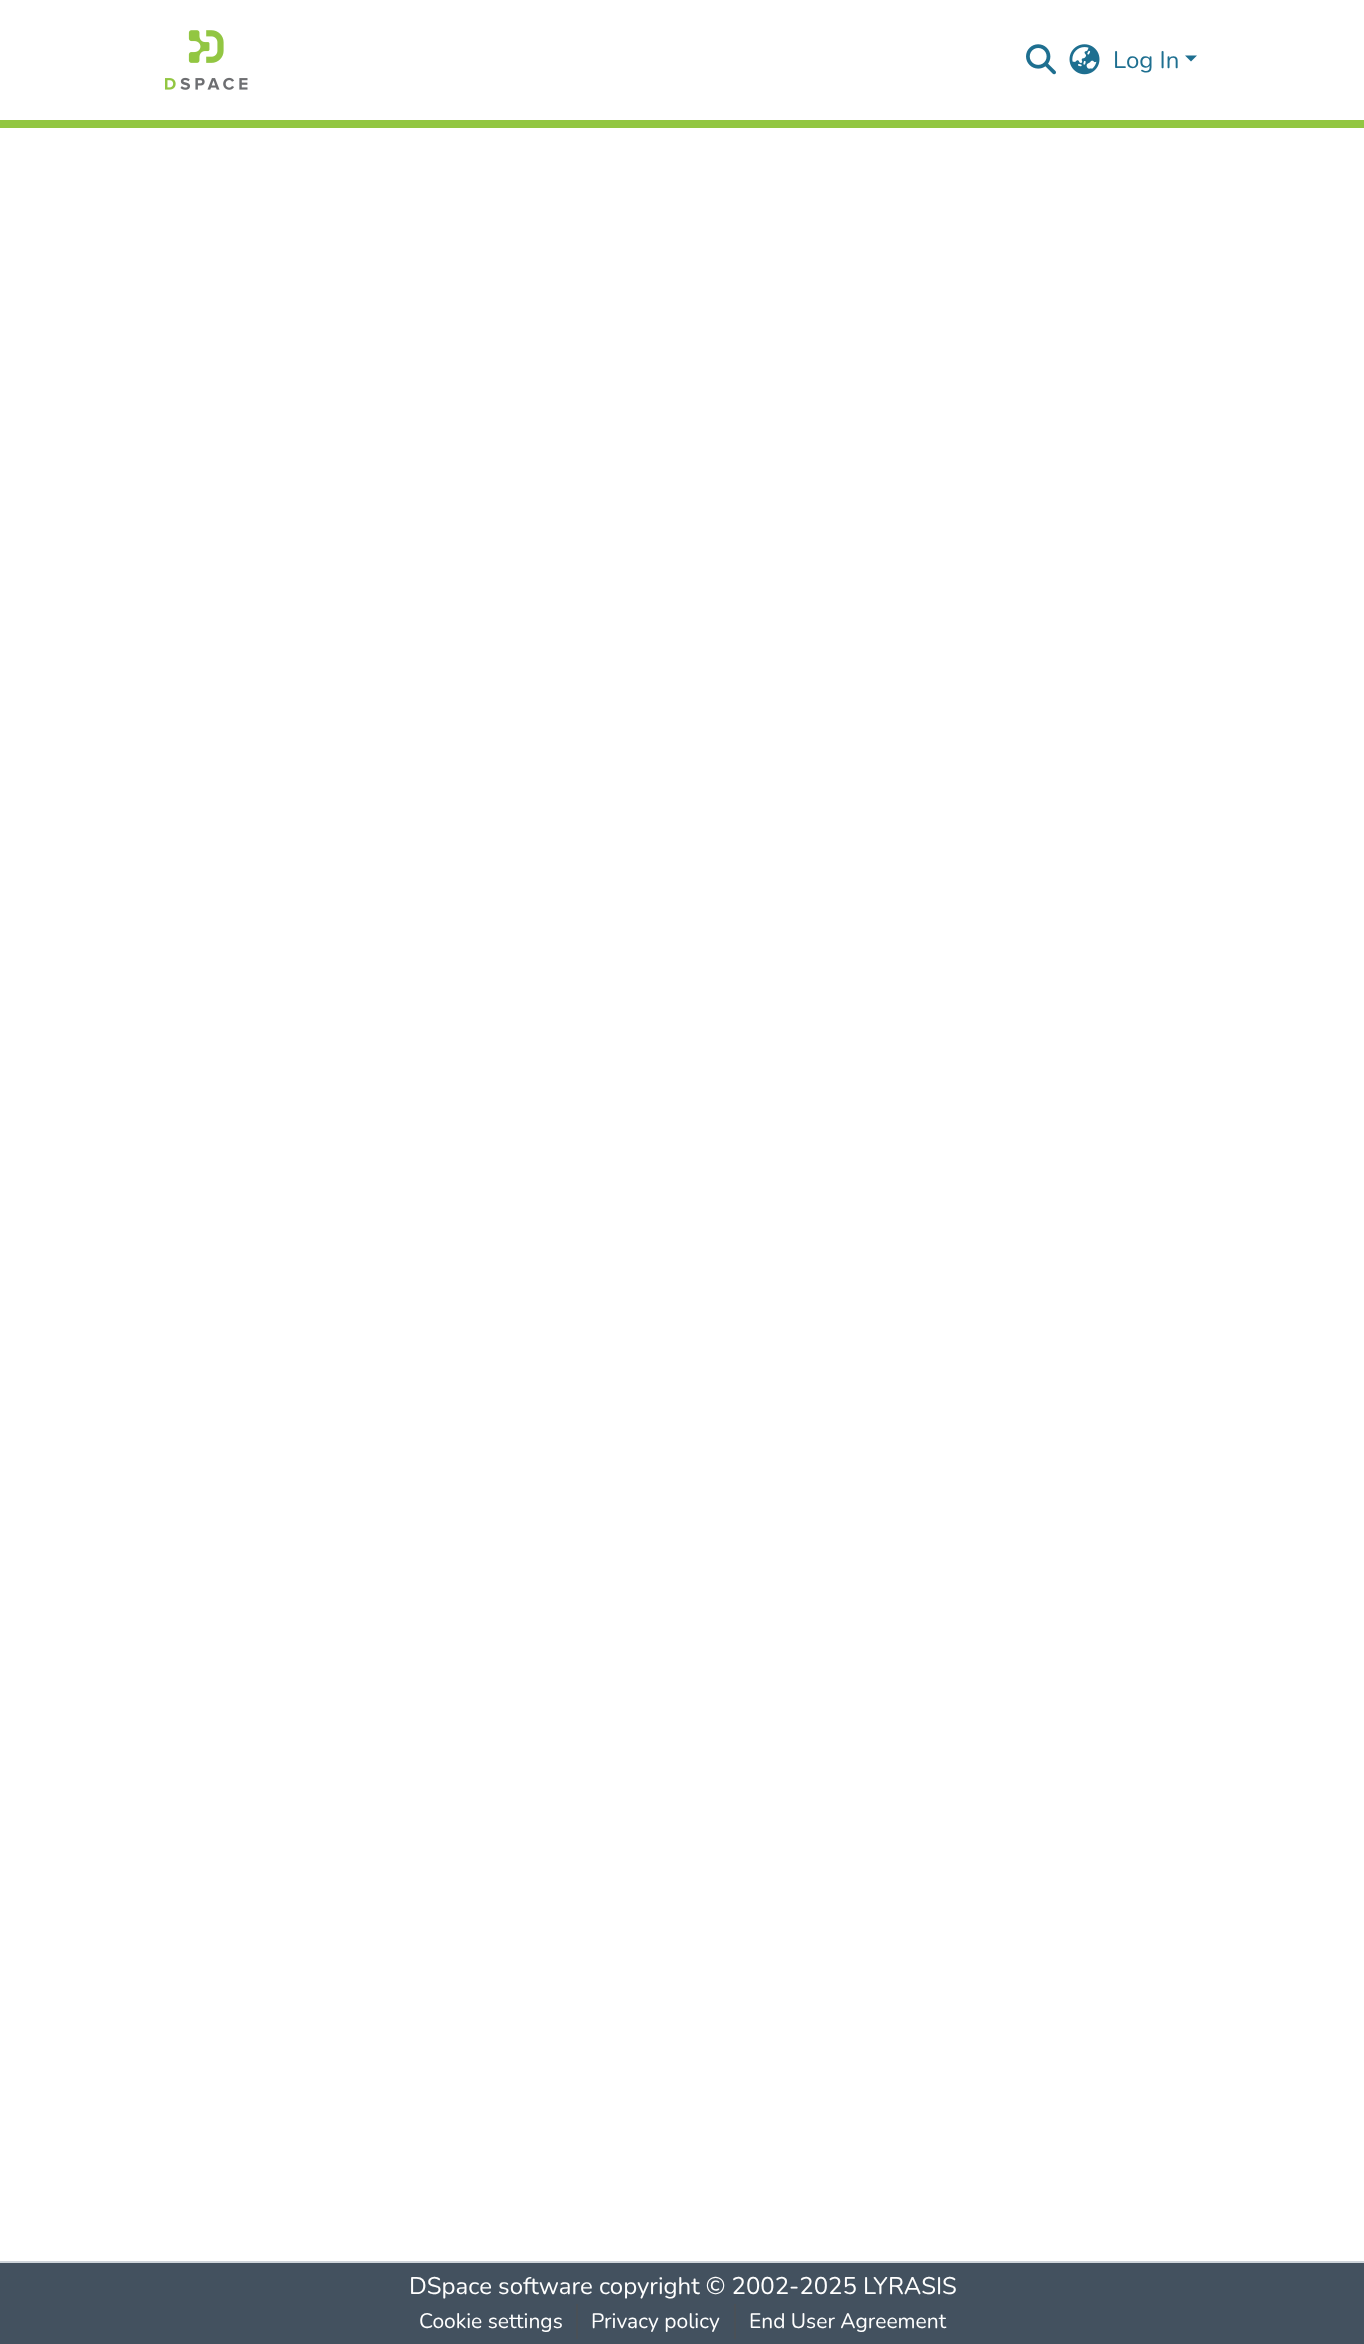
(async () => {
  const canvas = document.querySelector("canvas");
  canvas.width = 1364;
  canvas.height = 2344;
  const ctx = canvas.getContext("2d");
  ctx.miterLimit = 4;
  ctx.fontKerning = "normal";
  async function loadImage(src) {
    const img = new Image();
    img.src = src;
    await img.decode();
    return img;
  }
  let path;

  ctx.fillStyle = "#ffffff";
  ctx.fillRect(0, 0, 1364, 2344);
  ctx.fillStyle = "#92c642";
  ctx.fillRect(0, 120, 1364, 8);
  ctx.drawImage(await loadImage("img/1.png"), 165, 30, 83, 60);
  ctx.drawImage(await loadImage("img/2.png"), 1026, 44, 30, 31);
  ctx.drawImage(await loadImage("img/3.png"), 1069, 44, 31, 31);
  ctx.fillStyle = "#1e6f90";
  path = new Path2D("M1185 55.5H1197L1191 61.5Z");
  ctx.fill(path);
  for (const [x, y, w, h, color] of [
    [0, 2263, 1364, 81, "#43515f"],
    [0, 2261, 1364, 2, "#ced4da"],
    [576, 2304, 2, 35, "#495057"],
    [734, 2304, 2, 35, "#495057"],
  ]) {
    ctx.fillStyle = color;
    ctx.fillRect(x, y, w, h);
  }
  ctx.font = "24px Nunito";
  ctx.fillStyle = "#1e6f90";
  ctx.fillText("Log In", 1113, 68);
  ctx.fillStyle = "#ffffff";
  ctx.fillText("DSpace software copyright © 2002-2025 LYRASIS", 409, 2294);
  ctx.font = "21px Nunito";
  for (const [text, x, y] of [
    ["Cookie settings", 419, 2328],
    ["Privacy policy", 591, 2328],
    ["End User Agreement", 749, 2328],
  ]) {
    ctx.fillText(text, x, y);
  }
})();
